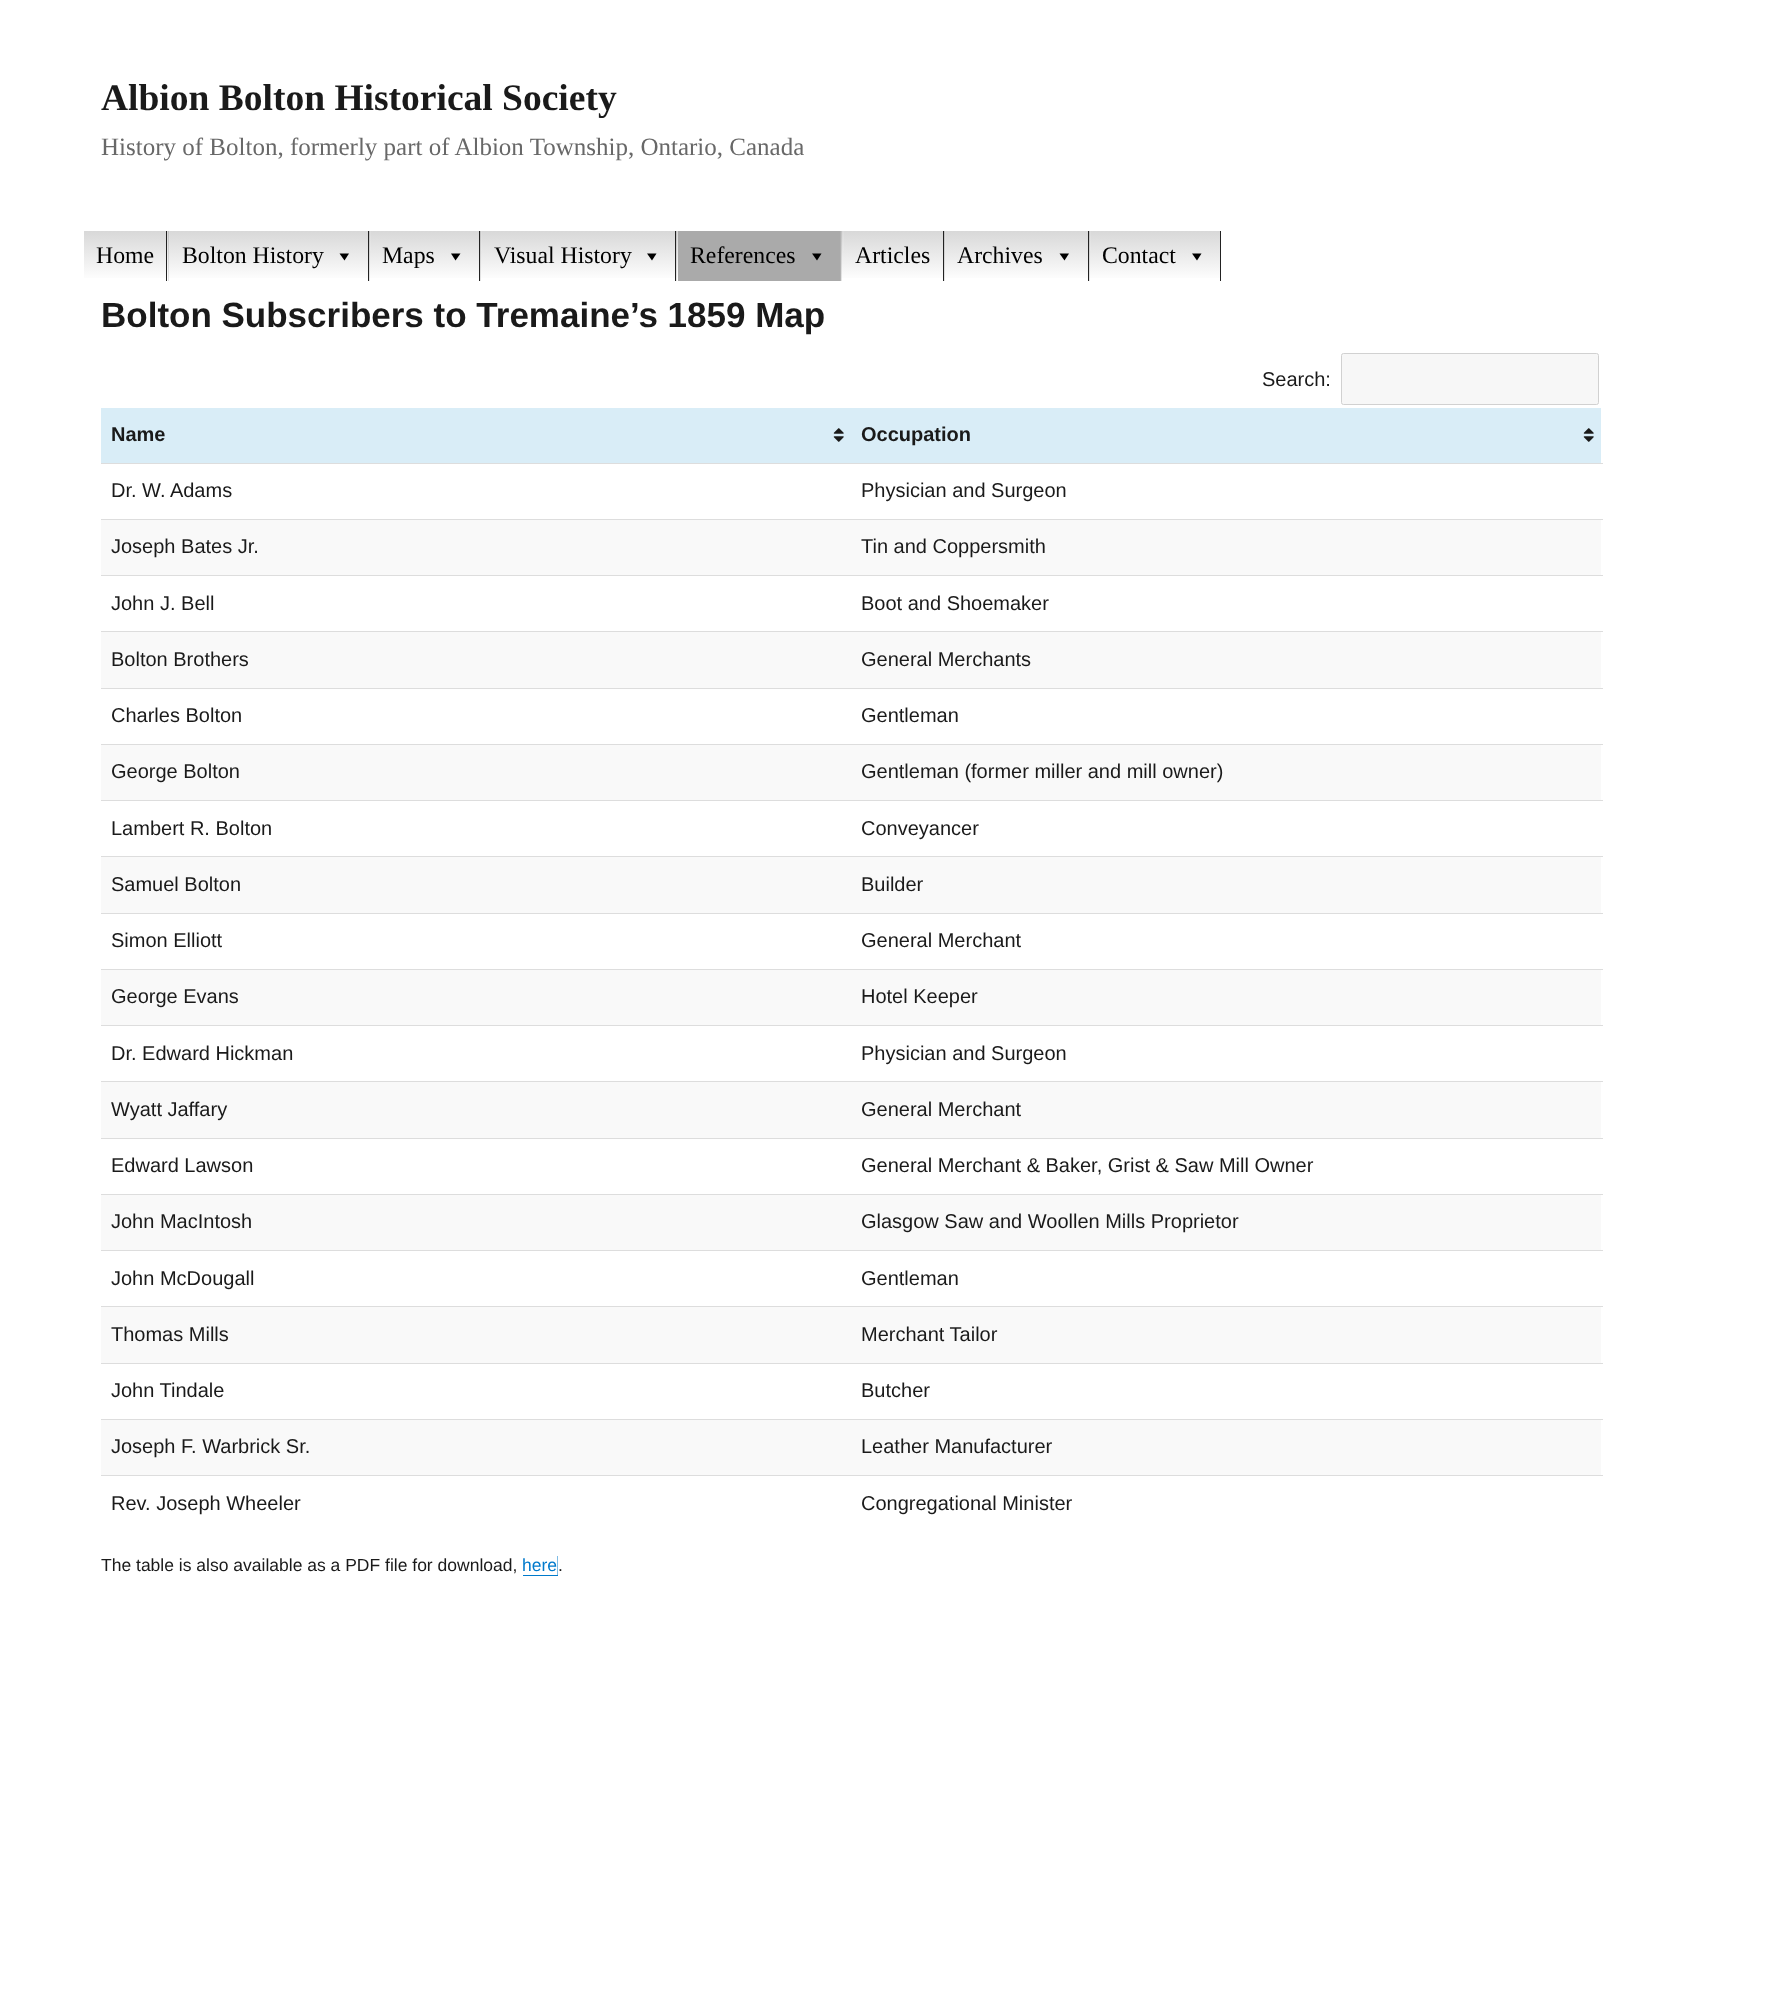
(async () => {
  const canvas = document.querySelector("canvas");
  canvas.width = 1782;
  canvas.height = 2010;
  const ctx = canvas.getContext("2d");
  ctx.miterLimit = 4;
  ctx.fontKerning = "normal";
  async function loadImage(src) {
    const img = new Image();
    img.src = src;
    await img.decode();
    return img;
  }
  let gradient, path;

  ctx.fillStyle = "#ffffff";
  ctx.fillRect(0, 0, 1782, 2010);
  gradient = ctx.createLinearGradient(653, 231, 653, 281);
  gradient.addColorStop(0, "#d8d8d8");
  gradient.addColorStop(1, "#ffffff");
  ctx.fillStyle = gradient;
  ctx.fillRect(84, 231, 1136, 47);
  gradient = ctx.createLinearGradient(653, 231, 653, 281);
  gradient.addColorStop(0, "#c2c2c2");
  gradient.addColorStop(1, "#e6e6e6");
  ctx.fillStyle = gradient;
  ctx.fillRect(1089, 231, 1, 50);
  gradient = ctx.createLinearGradient(653, 231, 653, 281);
  gradient.addColorStop(0, "#dcdcdc");
  gradient.addColorStop(1, "#ffffff");
  ctx.fillStyle = gradient;
  ctx.fillRect(1090, 231, 1, 20);
  gradient = ctx.createLinearGradient(653, 231, 653, 281);
  gradient.addColorStop(0, "#c2c2c2");
  gradient.addColorStop(1, "#e6e6e6");
  ctx.fillStyle = gradient;
  ctx.fillRect(944, 231, 1, 50);
  gradient = ctx.createLinearGradient(653, 231, 653, 281);
  gradient.addColorStop(0, "#dcdcdc");
  gradient.addColorStop(1, "#ffffff");
  ctx.fillStyle = gradient;
  ctx.fillRect(945, 231, 1, 20);
  gradient = ctx.createLinearGradient(653, 231, 653, 281);
  gradient.addColorStop(0, "#c2c2c2");
  gradient.addColorStop(1, "#e6e6e6");
  ctx.fillStyle = gradient;
  ctx.fillRect(841, 231, 1, 50);
  gradient = ctx.createLinearGradient(653, 231, 653, 281);
  gradient.addColorStop(0, "#dcdcdc");
  gradient.addColorStop(1, "#ffffff");
  ctx.fillStyle = gradient;
  ctx.fillRect(843, 231, 1, 20);
  gradient = ctx.createLinearGradient(653, 231, 653, 281);
  gradient.addColorStop(0, "#c2c2c2");
  gradient.addColorStop(1, "#e6e6e6");
  ctx.fillStyle = gradient;
  ctx.fillRect(676, 231, 1, 50);
  ctx.fillRect(480, 231, 1, 50);
  gradient = ctx.createLinearGradient(653, 231, 653, 281);
  gradient.addColorStop(0, "#dcdcdc");
  gradient.addColorStop(1, "#ffffff");
  ctx.fillStyle = gradient;
  ctx.fillRect(481, 231, 1, 20);
  gradient = ctx.createLinearGradient(653, 231, 653, 281);
  gradient.addColorStop(0, "#c2c2c2");
  gradient.addColorStop(1, "#e6e6e6");
  ctx.fillStyle = gradient;
  ctx.fillRect(369, 231, 1, 50);
  gradient = ctx.createLinearGradient(653, 231, 653, 281);
  gradient.addColorStop(0, "#dcdcdc");
  gradient.addColorStop(1, "#ffffff");
  ctx.fillStyle = gradient;
  ctx.fillRect(370, 231, 1, 20);
  gradient = ctx.createLinearGradient(653, 231, 653, 281);
  gradient.addColorStop(0, "#c2c2c2");
  gradient.addColorStop(1, "#e6e6e6");
  ctx.fillStyle = gradient;
  ctx.fillRect(168, 231, 1, 50);
  gradient = ctx.createLinearGradient(653, 231, 653, 281);
  gradient.addColorStop(0, "#dcdcdc");
  gradient.addColorStop(1, "#ffffff");
  ctx.fillStyle = gradient;
  ctx.fillRect(169, 231, 1, 20);
  ctx.fillStyle = "#222222";
  ctx.fillRect(166, 231, 1, 50);
  ctx.fillRect(368, 231, 1, 50);
  ctx.fillStyle = "#000000";
  path = new Path2D("M349 253.5L344.5 260.5L339.5 253.5Z");
  ctx.fill(path);
  ctx.fillStyle = "#222222";
  ctx.fillRect(479, 231, 1, 50);
  ctx.fillStyle = "#000000";
  path = new Path2D("M460.5 253.5L455.5 260.5L451 253.5Z");
  ctx.fill(path);
  ctx.fillStyle = "#222222";
  ctx.fillRect(675, 231, 1, 50);
  ctx.fillStyle = "#000000";
  path = new Path2D("M656.5 253.5L652 260.5L647 253.5Z");
  ctx.fill(path);
  ctx.fillStyle = "#aaaaaa";
  ctx.fillRect(678, 231, 162, 50);
  ctx.fillStyle = "#b3b3b3";
  ctx.fillRect(840, 231, 1, 50);
  ctx.fillStyle = "#000000";
  path = new Path2D("M821.5 253.5L817 260.5L812 253.5Z");
  ctx.fill(path);
  ctx.fillStyle = "#222222";
  ctx.fillRect(943, 231, 1, 50);
  ctx.fillRect(1088, 231, 1, 50);
  ctx.fillStyle = "#000000";
  path = new Path2D("M1069 253.5L1064.5 260.5L1059.5 253.5Z");
  ctx.fill(path);
  ctx.fillStyle = "#222222";
  ctx.fillRect(1220, 231, 1, 50);
  ctx.fillStyle = "#000000";
  path = new Path2D("M1201.5 253.5L1197 260.5L1192 253.5Z");
  ctx.fill(path);
  ctx.fillStyle = "#f7f7f7";
  ctx.beginPath();
  ctx.roundRect(1341.5, 353.5, 257, 51, 2);
  ctx.fill();
  ctx.strokeStyle = "#d1d1d1";
  ctx.stroke();
  ctx.fillStyle = "#d9edf7";
  ctx.fillRect(101, 408, 1500, 55);
  ctx.drawImage(await loadImage("img/1.png"), 833, 428, 11, 14);
  ctx.fillStyle = "#dddddd";
  ctx.fillRect(101, 463, 1502, 1);
  ctx.drawImage(await loadImage("img/1.png"), 1583, 428, 11, 14);
  for (const [x, y, w, h, color] of [
    [101, 520, 1500, 55, "#f9f9f9"],
    [101, 519, 1502, 1, "#dddddd"],
    [101, 575, 1502, 1, "#dddddd"],
    [101, 632, 1500, 56, "#f9f9f9"],
    [101, 631, 1502, 1, "#dddddd"],
    [101, 688, 1502, 1, "#dddddd"],
    [101, 745, 1500, 55, "#f9f9f9"],
    [101, 744, 1502, 1, "#dddddd"],
    [101, 800, 1502, 1, "#dddddd"],
    [101, 857, 1500, 56, "#f9f9f9"],
    [101, 856, 1502, 1, "#dddddd"],
    [101, 913, 1502, 1, "#dddddd"],
    [101, 970, 1500, 55, "#f9f9f9"],
    [101, 969, 1502, 1, "#dddddd"],
    [101, 1025, 1502, 1, "#dddddd"],
    [101, 1082, 1500, 56, "#f9f9f9"],
    [101, 1081, 1502, 1, "#dddddd"],
    [101, 1138, 1502, 1, "#dddddd"],
    [101, 1195, 1500, 55, "#f9f9f9"],
    [101, 1194, 1502, 1, "#dddddd"],
    [101, 1250, 1502, 1, "#dddddd"],
    [101, 1307, 1500, 56, "#f9f9f9"],
    [101, 1306, 1502, 1, "#dddddd"],
    [101, 1363, 1502, 1, "#dddddd"],
    [101, 1420, 1500, 55, "#f9f9f9"],
    [101, 1419, 1502, 1, "#dddddd"],
    [101, 1475, 1502, 1, "#dddddd"],
  ]) {
    ctx.fillStyle = color;
    ctx.fillRect(x, y, w, h);
  }
  ctx.fillStyle = "#007acc";
  path = new Path2D("M523 1575V1576H558V1556H557.5V1575Z");
  ctx.fill(path);
  ctx.font = "bold 37.5px Liberation Serif";
  ctx.fillStyle = "#1a1a1a";
  ctx.fillText("Albion Bolton Historical Society", 101, 110);
  ctx.font = "25px Liberation Serif";
  ctx.fillStyle = "#686868";
  ctx.fillText("History of Bolton, formerly part of Albion Township, Ontario, Canada", 101, 155);
  ctx.font = "23.75px Liberation Serif";
  ctx.fillStyle = "#000000";
  for (const [text, x, y] of [
    ["Home", 96, 263],
    ["Bolton History", 182, 263],
    ["Maps", 382, 263],
    ["Visual History", 494, 263],
    ["References", 690, 263],
    ["Articles", 855, 263],
    ["Archives", 957, 263],
    ["Contact", 1102, 263],
  ]) {
    ctx.fillText(text, x, y);
  }
  ctx.font = "bold 35px Liberation Sans";
  ctx.fillStyle = "#1a1a1a";
  ctx.fillText("Bolton Subscribers to Tremaine’s 1859 Map", 101, 327);
  ctx.font = "20px Liberation Sans";
  ctx.fillText("Search:", 1262, 386);
  ctx.font = "bold 20px Liberation Sans";
  ctx.fillText("Name", 111, 441);
  ctx.fillText("Occupation", 861, 441);
  ctx.font = "20px Liberation Sans";
  for (const [text, x, y] of [
    ["Dr. W. Adams", 111, 497],
    ["Physician and Surgeon", 861, 497],
    ["Joseph Bates Jr.", 111, 553],
    ["Tin and Coppersmith", 861, 553],
    ["John J. Bell", 111, 610],
    ["Boot and Shoemaker", 861, 610],
    ["Bolton Brothers", 111, 666],
    ["General Merchants", 861, 666],
    ["Charles Bolton", 111, 722],
    ["Gentleman", 861, 722],
    ["George Bolton", 111, 778],
    ["Gentleman (former miller and mill owner)", 861, 778],
    ["Lambert R. Bolton", 111, 835],
    ["Conveyancer", 861, 835],
    ["Samuel Bolton", 111, 891],
    ["Builder", 861, 891],
    ["Simon Elliott", 111, 947],
    ["General Merchant", 861, 947],
    ["George Evans", 111, 1003],
    ["Hotel Keeper", 861, 1003],
    ["Dr. Edward Hickman", 111, 1060],
    ["Physician and Surgeon", 861, 1060],
    ["Wyatt Jaffary", 111, 1116],
    ["General Merchant", 861, 1116],
    ["Edward Lawson", 111, 1172],
    ["General Merchant & Baker, Grist & Saw Mill Owner", 861, 1172],
    ["John MacIntosh", 111, 1228],
    ["Glasgow Saw and Woollen Mills Proprietor", 861, 1228],
    ["John McDougall", 111, 1285],
    ["Gentleman", 861, 1285],
    ["Thomas Mills", 111, 1341],
    ["Merchant Tailor", 861, 1341],
    ["John Tindale", 111, 1397],
    ["Butcher", 861, 1397],
    ["Joseph F. Warbrick Sr.", 111, 1453],
    ["Leather Manufacturer", 861, 1453],
    ["Rev. Joseph Wheeler", 111, 1510],
    ["Congregational Minister", 861, 1510],
  ]) {
    ctx.fillText(text, x, y);
  }
  ctx.font = "17.5px Liberation Sans";
  ctx.fillText("The table is also available as a PDF file for download,", 101, 1571);
  ctx.fillStyle = "#007acc";
  ctx.fillText("here", 522, 1571);
  ctx.fillStyle = "#1a1a1a";
  ctx.fillText(".", 558, 1571);
})();
